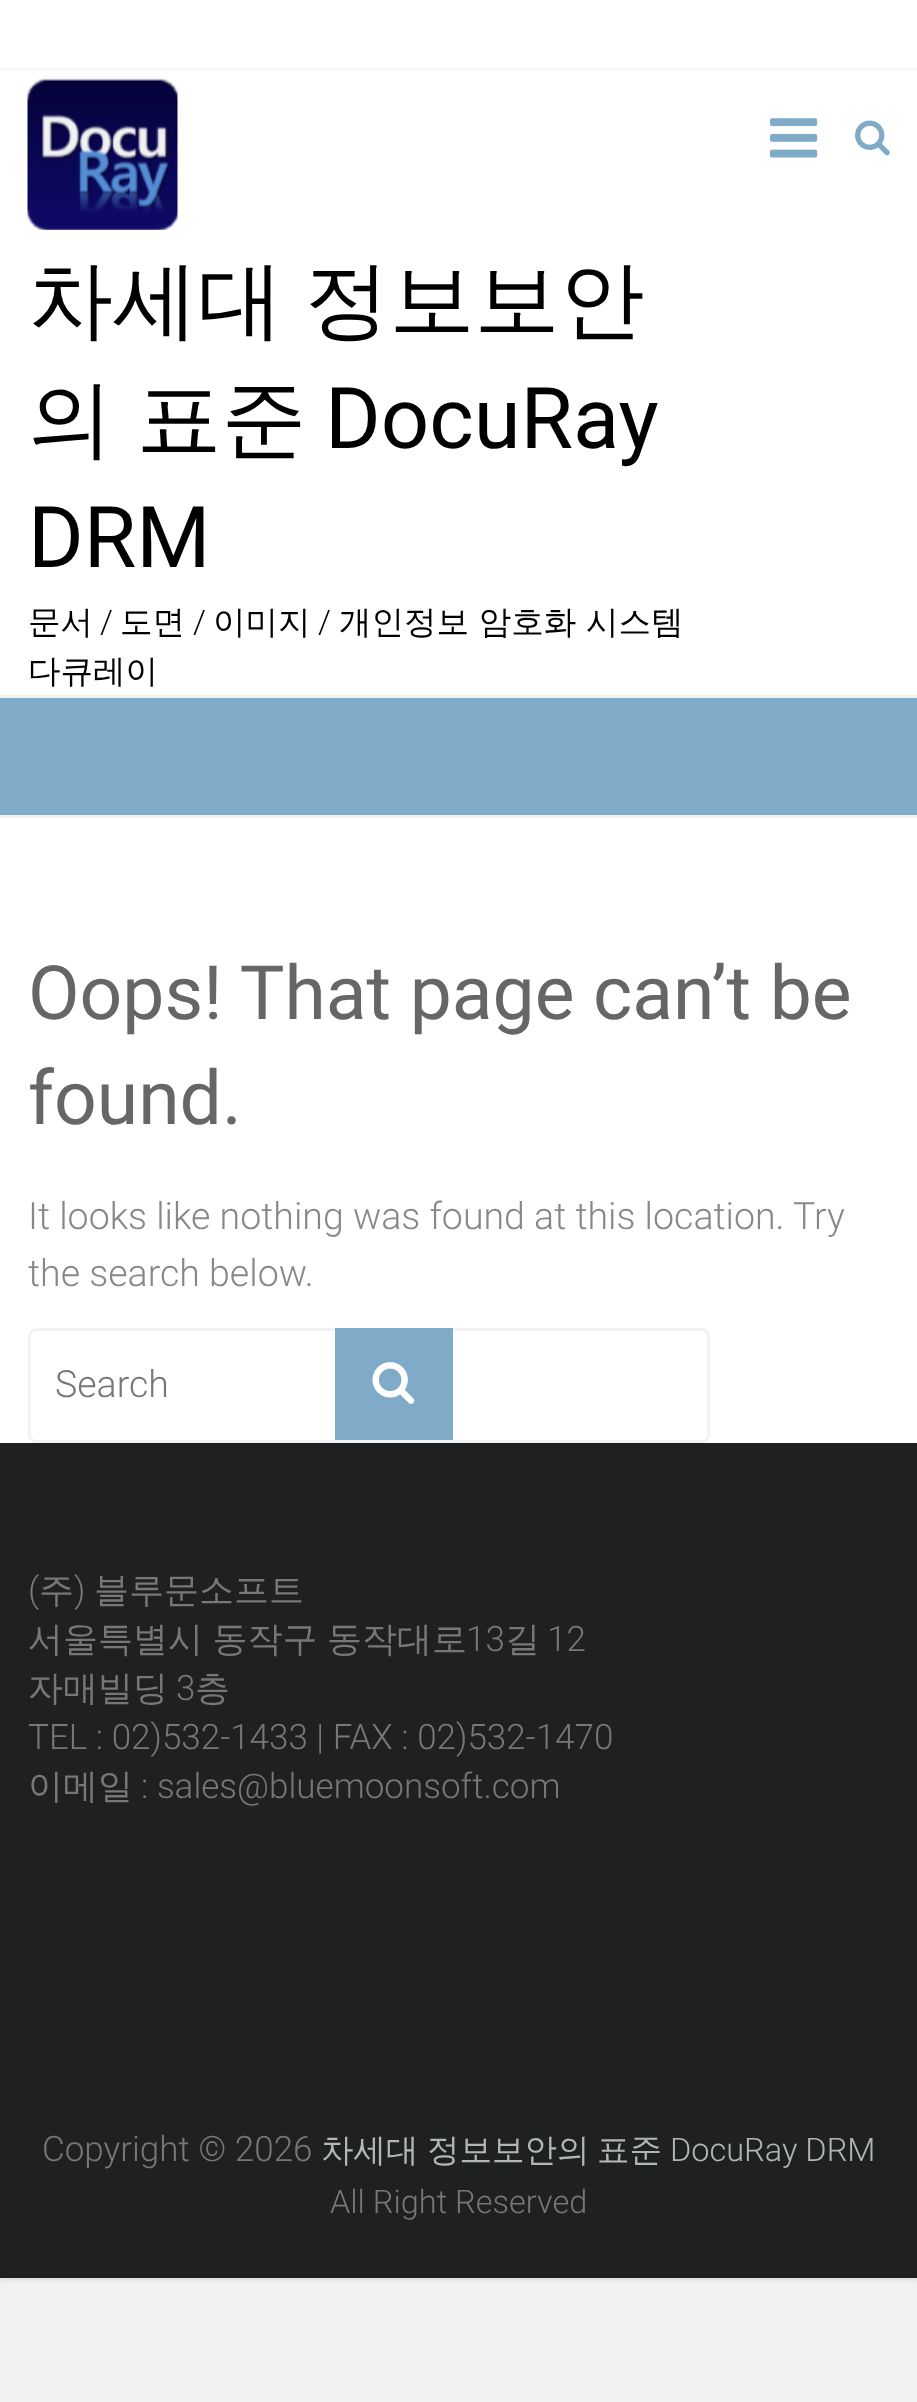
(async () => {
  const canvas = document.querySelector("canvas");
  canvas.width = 917;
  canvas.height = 2402;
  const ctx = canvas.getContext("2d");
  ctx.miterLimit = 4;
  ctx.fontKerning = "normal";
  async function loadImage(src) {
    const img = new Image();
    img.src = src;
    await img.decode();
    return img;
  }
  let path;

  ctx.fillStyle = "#f2f2f2";
  ctx.fillRect(0, 0, 917, 2402);
  ctx.fillStyle = "rgba(0, 0, 0, 0.1)";
  ctx.filter = "blur(2.5px)";
  ctx.beginPath();
  ctx.rect(0, 3, 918, 2277);
  ctx.fill();
  ctx.filter = "none";
  for (const [x, y, w, h, color] of [
    [0, 818, 917, 625, "#ffffff"],
    [0, 0, 917, 695, "#ffffff"],
    [0, 695, 917, 3, "#f2f2f2"],
  ]) {
    ctx.fillStyle = color;
    ctx.fillRect(x, y, w, h);
  }
  ctx.save();
  path = new Path2D("M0 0H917V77H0ZM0 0H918V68H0Z");
  ctx.clip(path, "evenodd");
  ctx.fillStyle = "rgba(0, 0, 0, 0.1)";
  ctx.filter = "blur(2.5px)";
  ctx.beginPath();
  ctx.rect(0, 0, 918, 68);
  ctx.fill();
  ctx.filter = "none";
  ctx.restore();
  ctx.drawImage(await loadImage("img/1.png"), 770, 118, 48, 40);
  ctx.drawImage(await loadImage("img/2.png"), 855, 120, 35, 36);
  ctx.drawImage(await loadImage("img/3.png"), 27, 78, 151, 152);
  ctx.fillStyle = "#80abc8";
  ctx.fillRect(0, 698, 917, 117);
  ctx.fillStyle = "#f2f2f2";
  ctx.fillRect(0, 815, 917, 3);
  ctx.beginPath();
  ctx.roundRect(29.5, 1329.5, 679, 112, 6.5);
  ctx.strokeStyle = "#f2f2f2";
  ctx.lineWidth = 3;
  ctx.stroke();
  ctx.fillStyle = "#80abc8";
  ctx.fillRect(335, 1328, 118, 112);
  ctx.drawImage(await loadImage("img/4.png"), 372, 1362, 43, 42);
  ctx.fillStyle = "#1f2021";
  ctx.fillRect(0, 1443, 917, 835);
  ctx.wordSpacing = "-4px";
  ctx.font = "500 85px WenQuanYi Zen Hei";
  ctx.fillStyle = "#000000";
  ctx.fillText("차세대 정보보안", 28, 329);
  ctx.wordSpacing = "-2px";
  ctx.fillText("의 표준", 28, 448);
  ctx.wordSpacing = "0px";
  ctx.font = "85px Roboto";
  ctx.fillText("DocuRay", 325, 448);
  ctx.fillText("DRM", 28, 567);
  ctx.font = "500 32.5px WenQuanYi Zen Hei";
  ctx.fillText("문서", 28, 633);
  ctx.font = "300 32.5px Roboto";
  ctx.fillText("/", 100, 633);
  ctx.font = "500 32.5px WenQuanYi Zen Hei";
  ctx.fillText("도면", 120, 633);
  ctx.font = "300 32.5px Roboto";
  ctx.fillText("/", 193, 633);
  ctx.font = "500 32.5px WenQuanYi Zen Hei";
  ctx.fillText("이미지", 213, 633);
  ctx.font = "300 32.5px Roboto";
  ctx.fillText("/", 318, 633);
  ctx.font = "500 32.5px WenQuanYi Zen Hei";
  ctx.fillText("개인정보 암호화 시스템", 339, 633);
  ctx.fillText("다큐레이", 28, 682);
  ctx.font = "75px Roboto";
  ctx.fillStyle = "#666666";
  ctx.fillText("Oops! That page can’t be", 28, 1019);
  ctx.fillText("found.", 28, 1124);
  ctx.font = "300 37.5px Roboto";
  ctx.fillStyle = "#888888";
  ctx.fillText("It looks like nothing was found at this location. Try", 28, 1229);
  ctx.fillText("the search below.", 28, 1286);
  ctx.fillStyle = "#777777";
  ctx.fillText("Search", 55, 1397);
  ctx.font = "300 35px Roboto";
  ctx.fillText("(", 28, 1602);
  ctx.font = "500 35px WenQuanYi Zen Hei";
  ctx.fillText("주", 39, 1602);
  ctx.font = "300 35px Roboto";
  ctx.fillText(")", 74, 1602);
  ctx.font = "500 35px WenQuanYi Zen Hei";
  ctx.fillText("블루문소프트", 94, 1602);
  ctx.wordSpacing = "-1px";
  ctx.fillText("서울특별시 동작구 동작대로", 28, 1651);
  ctx.wordSpacing = "0px";
  ctx.font = "300 35px Roboto";
  ctx.fillText("13", 466, 1651);
  ctx.font = "500 35px WenQuanYi Zen Hei";
  ctx.fillText("길", 505, 1651);
  ctx.font = "300 35px Roboto";
  ctx.fillText("12", 547, 1651);
  ctx.font = "500 35px WenQuanYi Zen Hei";
  ctx.fillText("자매빌딩", 28, 1700);
  ctx.font = "300 35px Roboto";
  ctx.fillText("3", 176, 1700);
  ctx.font = "500 35px WenQuanYi Zen Hei";
  ctx.fillText("층", 195, 1700);
  ctx.font = "300 35px Roboto";
  ctx.fillText("TEL : 02)532-1433 | FAX : 02)532-1470", 28, 1749);
  ctx.font = "500 35px WenQuanYi Zen Hei";
  ctx.fillText("이메일", 28, 1798);
  ctx.font = "300 35px Roboto";
  ctx.fillText(": sales@bluemoonsoft.com", 141, 1798);
  ctx.fillText("Copyright © 2026", 42, 2161);
  ctx.font = "500 32.5px WenQuanYi Zen Hei";
  ctx.fillStyle = "#b1b6b6";
  for (const [text, x, y] of [
    ["차세대", 321, 2161],
    ["정보보안의", 427, 2161],
    ["표준", 597, 2161],
  ]) {
    ctx.fillText(text, x, y);
  }
  ctx.font = "300 32.5px Roboto";
  ctx.fillText("DocuRay DRM", 670, 2161);
  ctx.fillStyle = "#777777";
  ctx.fillText("All Right Reserved", 330, 2213);
})();
